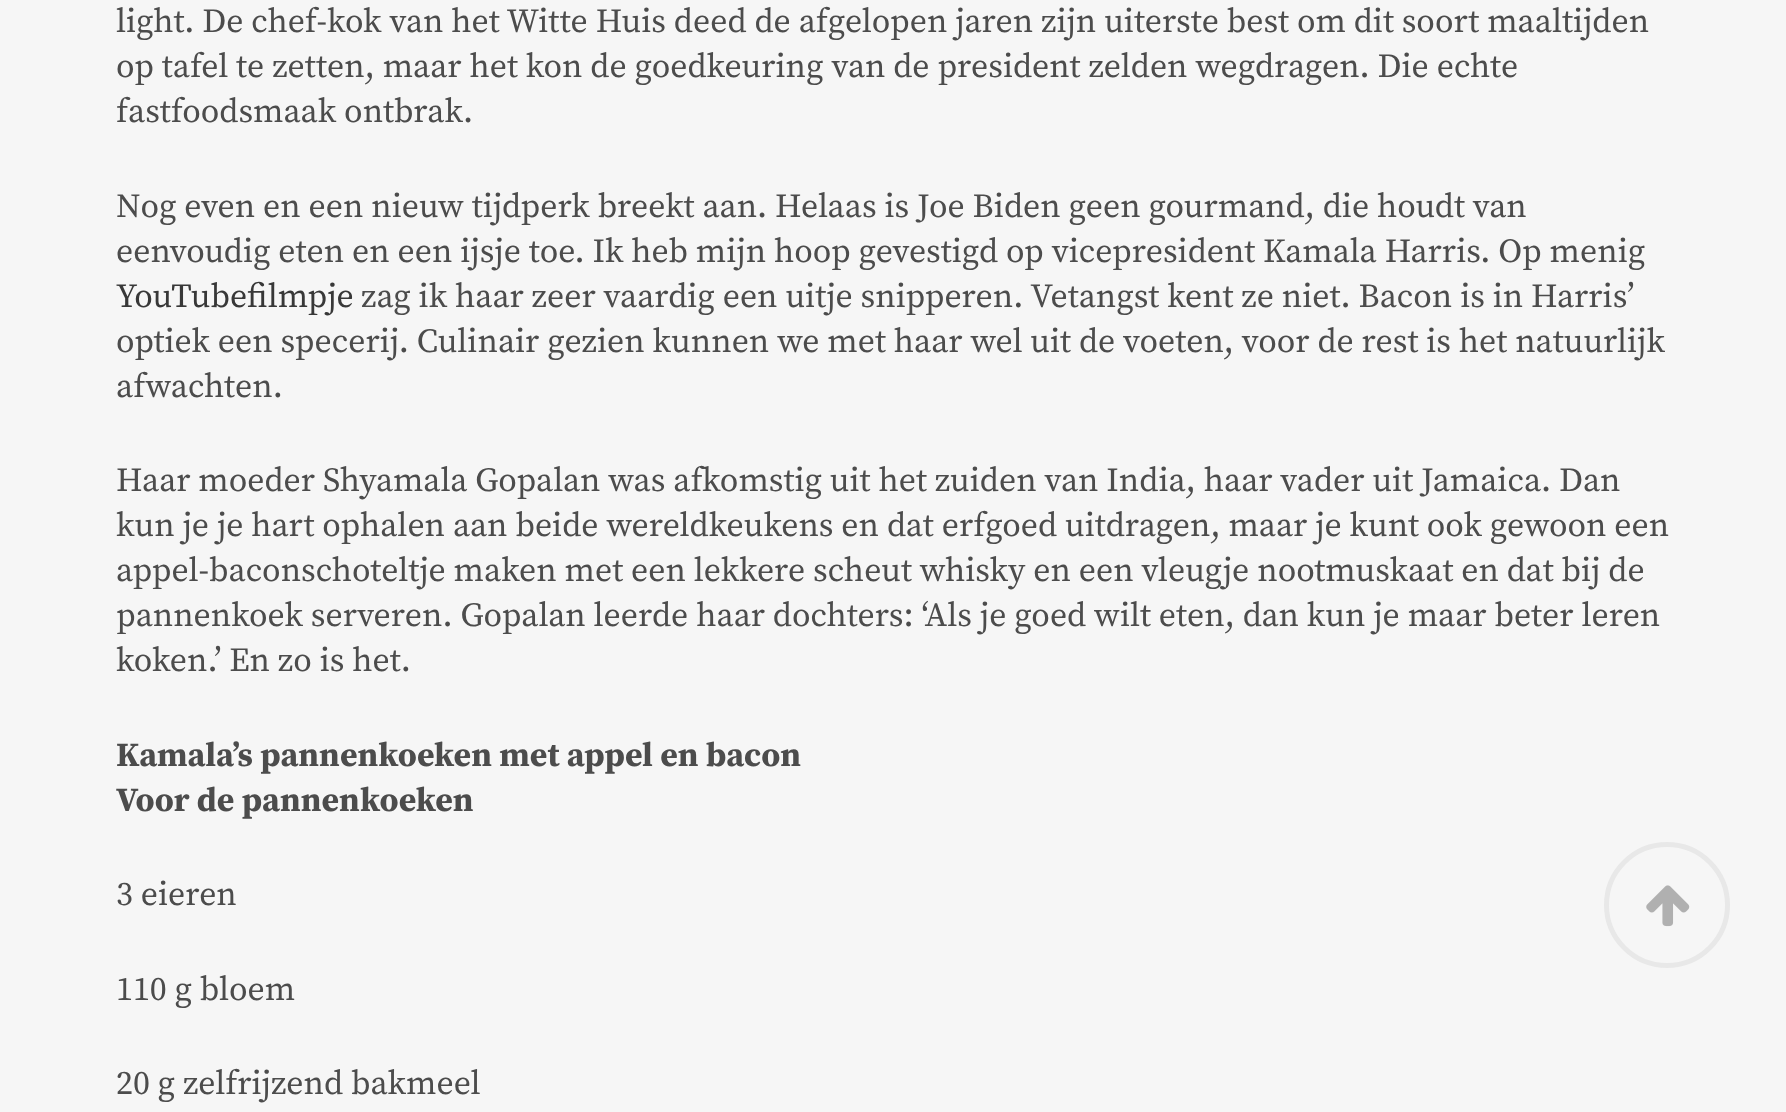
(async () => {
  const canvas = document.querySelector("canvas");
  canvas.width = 1786;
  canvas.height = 1112;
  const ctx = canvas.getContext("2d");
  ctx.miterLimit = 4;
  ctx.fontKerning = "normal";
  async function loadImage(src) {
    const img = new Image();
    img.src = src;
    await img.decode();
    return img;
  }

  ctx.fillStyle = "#f6f6f6";
  ctx.fillRect(0, 0, 1786, 1112);
  ctx.beginPath();
  ctx.arc(1667, 905, 60.5, 0, Math.PI * 2);
  ctx.strokeStyle = "#e8e8e8";
  ctx.lineWidth = 5;
  ctx.stroke();
  ctx.drawImage(await loadImage("img/1.png"), 1646, 885, 44, 42);
  ctx.font = "33.75px Source Serif Pro";
  ctx.fillStyle = "#4c4c4c";
  for (const [text, x, y] of [
    ["light. De chef-kok van het Witte Huis deed de afgelopen jaren zijn uiterste best om dit soort maaltijden", 116, 32],
    ["op tafel te zetten, maar het kon de goedkeuring van de president zelden wegdragen. Die echte", 116, 77],
    ["fastfoodsmaak ontbrak.", 116, 122],
    ["Nog even en een nieuw tijdperk breekt aan. Helaas is Joe Biden geen gourmand, die houdt van", 116, 217],
    ["eenvoudig eten en een ijsje toe. Ik heb mijn hoop gevestigd op vicepresident Kamala Harris. Op menig", 116, 262],
  ]) {
    ctx.fillText(text, x, y);
  }
  ctx.fillStyle = "#383838";
  ctx.fillText("YouTubefilmpje", 116, 307);
  ctx.fillStyle = "#4c4c4c";
  for (const [text, x, y] of [
    ["zag ik haar zeer vaardig een uitje snipperen. Vetangst kent ze niet. Bacon is in Harris’", 361, 307],
    ["optiek een specerij. Culinair gezien kunnen we met haar wel uit de voeten, voor de rest is het natuurlijk", 116, 352],
    ["afwachten.", 116, 397],
    ["Haar moeder Shyamala Gopalan was afkomstig uit het zuiden van India, haar vader uit Jamaica. Dan", 116, 491],
    ["kun je je hart ophalen aan beide wereldkeukens en dat erfgoed uitdragen, maar je kunt ook gewoon een", 116, 536],
    ["appel-baconschoteltje maken met een lekkere scheut whisky en een vleugje nootmuskaat en dat bij de", 116, 581],
    ["pannenkoek serveren. Gopalan leerde haar dochters: ‘Als je goed wilt eten, dan kun je maar beter leren", 116, 626],
    ["koken.’ En zo is het.", 116, 671],
  ]) {
    ctx.fillText(text, x, y);
  }
  ctx.font = "bold 33.75px Source Serif Pro";
  ctx.fillText("Kamala’s pannenkoeken met appel en bacon", 116, 766);
  ctx.fillText("Voor de pannenkoeken", 116, 811);
  ctx.font = "33.75px Source Serif Pro";
  for (const [text, x, y] of [
    ["3 eieren", 116, 905],
    ["110 g bloem", 116, 1000],
    ["20 g zelfrijzend bakmeel", 116, 1094],
  ]) {
    ctx.fillText(text, x, y);
  }
})();
